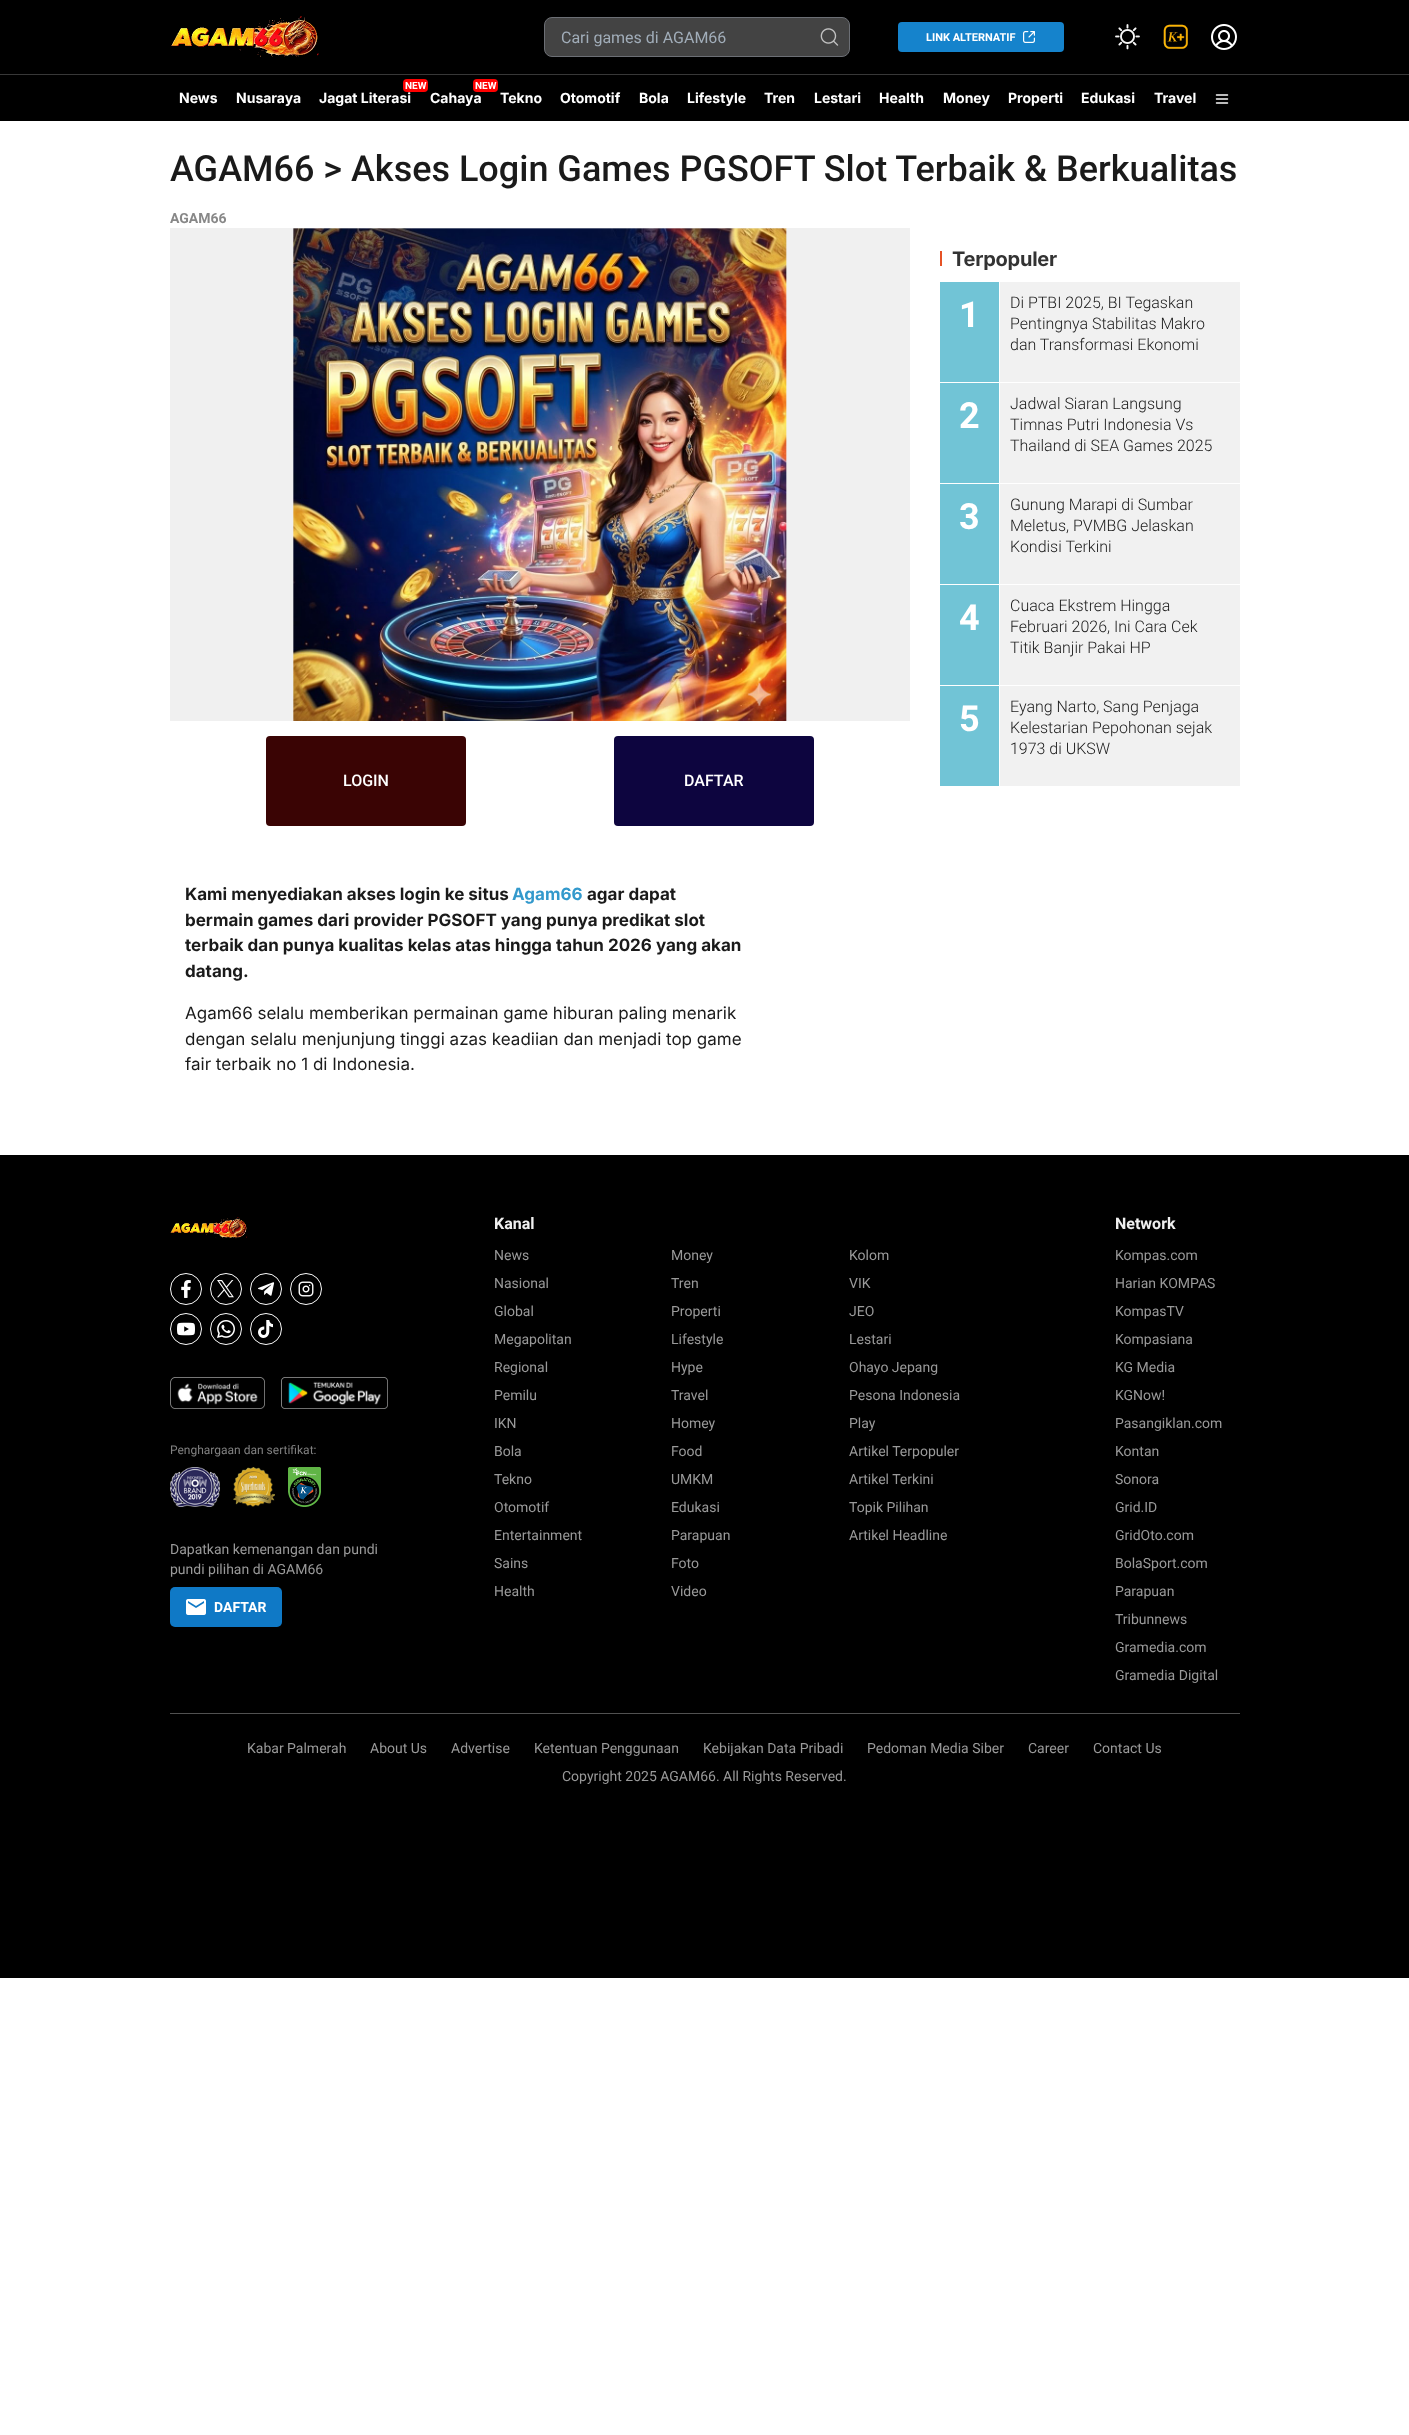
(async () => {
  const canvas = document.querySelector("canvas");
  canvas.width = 1409;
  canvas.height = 2435;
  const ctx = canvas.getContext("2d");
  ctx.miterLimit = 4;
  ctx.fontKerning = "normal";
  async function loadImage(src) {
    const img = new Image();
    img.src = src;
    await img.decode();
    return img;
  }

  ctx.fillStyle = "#ffffff";
  ctx.fillRect(0, 0, 1409, 2435);
  ctx.fillStyle = "#000000";
  ctx.fillRect(0, 0, 1409, 121);
  ctx.drawImage(await loadImage("img/1.png"), 171, 16, 148, 41);
  ctx.fillStyle = "#434343";
  ctx.beginPath();
  ctx.roundRect(544.5, 17.5, 305, 39, 7.5);
  ctx.fill();
  ctx.strokeStyle = "#6c6f75";
  ctx.stroke();
  ctx.drawImage(await loadImage("img/2.png"), 820, 28, 19, 18);
  ctx.fillStyle = "#1583cc";
  ctx.beginPath();
  ctx.roundRect(898, 22, 166, 30, 4);
  ctx.fill();
  ctx.drawImage(await loadImage("img/3.png"), 1023, 31, 12, 12);
  ctx.drawImage(await loadImage("img/4.png"), 1115, 24, 25, 26);
  ctx.drawImage(await loadImage("img/5.png"), 1163, 24, 25, 25);
  ctx.drawImage(await loadImage("img/6.png"), 1211, 24, 26, 26);
  ctx.fillStyle = "#383838";
  ctx.fillRect(0, 74, 1409, 1);
  ctx.fillStyle = "#ff0000";
  ctx.beginPath();
  ctx.roundRect(403, 79, 25, 13, 4);
  ctx.fill();
  ctx.beginPath();
  ctx.roundRect(473, 79, 25, 13, 4);
  ctx.fill();
  ctx.drawImage(await loadImage("img/7.png"), 1215, 94, 14, 10);
  ctx.fillStyle = "#f0f0f0";
  ctx.fillRect(170, 228, 740, 493);
  ctx.drawImage(await loadImage("img/8.png"), 293, 228, 494, 493);
  ctx.fillStyle = "#3a0404";
  ctx.beginPath();
  ctx.roundRect(266, 736, 200, 90, 4);
  ctx.fill();
  ctx.fillStyle = "#0d053f";
  ctx.beginPath();
  ctx.roundRect(614, 736, 200, 90, 4);
  ctx.fill();
  for (const [x, y, w, h, color] of [
    [940, 251, 2, 15, "#e65225"],
    [1000, 282, 240, 100, "#f1f1f1"],
    [940, 282, 59, 100, "#71c4d6"],
    [1000, 383, 240, 100, "#f1f1f1"],
    [940, 383, 59, 100, "#71c4d6"],
    [1000, 484, 240, 100, "#f1f1f1"],
    [940, 484, 59, 100, "#71c4d6"],
    [1000, 585, 240, 100, "#f1f1f1"],
    [940, 585, 59, 100, "#71c4d6"],
    [1000, 686, 240, 100, "#f1f1f1"],
    [940, 686, 59, 100, "#71c4d6"],
    [0, 1155, 1409, 823, "#000000"],
  ]) {
    ctx.fillStyle = color;
    ctx.fillRect(x, y, w, h);
  }
  ctx.drawImage(await loadImage("img/9.png"), 170, 1217, 78, 22);
  ctx.drawImage(await loadImage("img/10.png"), 181, 1280, 10, 18);
  ctx.beginPath();
  ctx.arc(186, 1289, 15.5, 0, Math.PI * 2);
  ctx.strokeStyle = "#fbfbfb";
  ctx.stroke();
  ctx.drawImage(await loadImage("img/11.png"), 217, 1280, 17, 18);
  ctx.beginPath();
  ctx.arc(226, 1289, 15.5, 0, Math.PI * 2);
  ctx.stroke();
  ctx.drawImage(await loadImage("img/12.png"), 258, 1282, 17, 14);
  ctx.beginPath();
  ctx.arc(266, 1289, 15.5, 0, Math.PI * 2);
  ctx.stroke();
  ctx.drawImage(await loadImage("img/13.png"), 298, 1281, 16, 16);
  ctx.beginPath();
  ctx.arc(306, 1289, 15.5, 0, Math.PI * 2);
  ctx.stroke();
  ctx.drawImage(await loadImage("img/14.png"), 177, 1322, 18, 14);
  ctx.beginPath();
  ctx.arc(186, 1329, 15.5, 0, Math.PI * 2);
  ctx.stroke();
  ctx.drawImage(await loadImage("img/15.png"), 217, 1320, 18, 18);
  ctx.beginPath();
  ctx.arc(226, 1329, 15.5, 0, Math.PI * 2);
  ctx.stroke();
  ctx.drawImage(await loadImage("img/16.png"), 258, 1320, 15, 18);
  ctx.beginPath();
  ctx.arc(266, 1329, 15.5, 0, Math.PI * 2);
  ctx.stroke();
  ctx.drawImage(await loadImage("img/17.png"), 170, 1377, 95, 32);
  ctx.drawImage(await loadImage("img/18.png"), 281, 1377, 107, 32);
  ctx.drawImage(await loadImage("img/19.png"), 170, 1467, 50, 40);
  ctx.drawImage(await loadImage("img/20.png"), 233, 1467, 42, 40);
  ctx.drawImage(await loadImage("img/21.png"), 288, 1467, 33, 40);
  ctx.fillStyle = "#0f79c6";
  ctx.beginPath();
  ctx.roundRect(170, 1587, 112, 40, 5);
  ctx.fill();
  ctx.drawImage(await loadImage("img/22.png"), 186, 1599, 20, 16);
  ctx.fillStyle = "#515151";
  ctx.fillRect(170, 1713, 1070, 1);
  ctx.font = "16px Roboto";
  ctx.fillStyle = "#a1adb9";
  ctx.fillText("Cari games di AGAM66", 561, 43);
  ctx.font = "bold 11px Roboto";
  ctx.fillStyle = "#ffffff";
  ctx.fillText("LINK ALTERNATIF", 926, 41);
  ctx.font = "bold 14px Inter";
  ctx.fillText("News", 179, 103);
  ctx.fillText("Nusaraya", 236, 103);
  ctx.font = "bold 10px Roboto";
  ctx.fillText("NEW", 405, 89);
  ctx.font = "bold 14px Inter";
  ctx.fillText("Jagat Literasi", 319, 103);
  ctx.font = "bold 10px Roboto";
  ctx.fillText("NEW", 475, 89);
  ctx.font = "bold 14px Inter";
  for (const [text, x, y] of [
    ["Cahaya", 430, 103],
    ["Tekno", 500, 103],
    ["Otomotif", 560, 103],
    ["Bola", 639, 103],
    ["Lifestyle", 687, 103],
    ["Tren", 764, 103],
    ["Lestari", 814, 103],
    ["Health", 879, 103],
    ["Money", 943, 103],
    ["Properti", 1008, 103],
    ["Edukasi", 1081, 103],
    ["Travel", 1154, 103],
  ]) {
    ctx.fillText(text, x, y);
  }
  ctx.font = "500 36px Roboto";
  ctx.fillStyle = "#1a1a1a";
  ctx.fillText("AGAM66 > Akses Login Games PGSOFT Slot Terbaik & Berkualitas", 170, 181);
  ctx.font = "bold 14px Roboto";
  ctx.fillStyle = "#888888";
  ctx.fillText("AGAM66", 170, 223);
  ctx.font = "500 16px Roboto";
  ctx.fillStyle = "#ffffff";
  ctx.fillText("LOGIN", 343, 786);
  ctx.fillText("DAFTAR", 684, 786);
  ctx.font = "bold 17px Inter";
  ctx.fillStyle = "#1a1a1a";
  ctx.fillText("Kami menyediakan akses login ke situs", 185, 900);
  ctx.fillStyle = "#3399cc";
  ctx.fillText("Agam66", 512, 900);
  ctx.fillStyle = "#1a1a1a";
  for (const [text, x, y] of [
    ["agar dapat", 587, 900],
    ["bermain games dari provider PGSOFT yang punya predikat slot", 185, 926],
    ["terbaik dan punya kualitas kelas atas hingga tahun 2026 yang akan", 185, 951],
    ["datang.", 185, 977],
  ]) {
    ctx.fillText(text, x, y);
  }
  ctx.font = "17px Inter";
  for (const [text, x, y] of [
    ["Agam66 selalu memberikan permainan game hiburan paling menarik", 185, 1019],
    ["dengan selalu menjunjung tinggi azas keadiian dan menjadi top game", 185, 1045],
    ["fair terbaik no 1 di Indonesia.", 185, 1070],
  ]) {
    ctx.fillText(text, x, y);
  }
  ctx.letterSpacing = "-0.25px";
  ctx.font = "bold 20px Inter";
  ctx.fillStyle = "#333333";
  ctx.fillText("Terpopuler", 952, 266);
  ctx.letterSpacing = "0px";
  ctx.font = "bold 36px Roboto";
  ctx.fillStyle = "#ffffff";
  ctx.fillText("1", 959, 327);
  ctx.font = "300 16px Roboto";
  ctx.fillStyle = "#1a1a1a";
  for (const [text, x, y] of [
    ["Di PTBI 2025, BI Tegaskan", 1010, 308],
    ["Pentingnya Stabilitas Makro", 1010, 329],
    ["dan Transformasi Ekonomi", 1010, 350],
  ]) {
    ctx.fillText(text, x, y);
  }
  ctx.font = "bold 36px Roboto";
  ctx.fillStyle = "#ffffff";
  ctx.fillText("2", 959, 428);
  ctx.font = "300 16px Roboto";
  ctx.fillStyle = "#1a1a1a";
  for (const [text, x, y] of [
    ["Jadwal Siaran Langsung", 1010, 409],
    ["Timnas Putri Indonesia Vs", 1010, 430],
    ["Thailand di SEA Games 2025", 1010, 451],
  ]) {
    ctx.fillText(text, x, y);
  }
  ctx.font = "bold 36px Roboto";
  ctx.fillStyle = "#ffffff";
  ctx.fillText("3", 959, 529);
  ctx.font = "300 16px Roboto";
  ctx.fillStyle = "#1a1a1a";
  for (const [text, x, y] of [
    ["Gunung Marapi di Sumbar", 1010, 510],
    ["Meletus, PVMBG Jelaskan", 1010, 531],
    ["Kondisi Terkini", 1010, 552],
  ]) {
    ctx.fillText(text, x, y);
  }
  ctx.font = "bold 36px Roboto";
  ctx.fillStyle = "#ffffff";
  ctx.fillText("4", 959, 630);
  ctx.font = "300 16px Roboto";
  ctx.fillStyle = "#1a1a1a";
  for (const [text, x, y] of [
    ["Cuaca Ekstrem Hingga", 1010, 611],
    ["Februari 2026, Ini Cara Cek", 1010, 632],
    ["Titik Banjir Pakai HP", 1010, 653],
  ]) {
    ctx.fillText(text, x, y);
  }
  ctx.font = "bold 36px Roboto";
  ctx.fillStyle = "#ffffff";
  ctx.fillText("5", 959, 731);
  ctx.font = "300 16px Roboto";
  ctx.fillStyle = "#1a1a1a";
  for (const [text, x, y] of [
    ["Eyang Narto, Sang Penjaga", 1010, 712],
    ["Kelestarian Pepohonan sejak", 1010, 733],
    ["1973 di UKSW", 1010, 754],
  ]) {
    ctx.fillText(text, x, y);
  }
  ctx.font = "12px Roboto";
  ctx.fillStyle = "#808080";
  ctx.fillText("Penghargaan dan sertifikat:", 170, 1454);
  ctx.font = "14px Roboto";
  ctx.fillStyle = "#999999";
  ctx.fillText("Dapatkan kemenangan dan pundi", 170, 1554);
  ctx.fillText("pundi pilihan di AGAM66", 170, 1574);
  ctx.font = "bold 14px Roboto";
  ctx.fillStyle = "#ffffff";
  ctx.fillText("DAFTAR", 214, 1612);
  ctx.font = "bold 16px Roboto";
  ctx.fillStyle = "#efefef";
  ctx.fillText("Kanal", 494, 1229);
  ctx.font = "14px Roboto";
  ctx.fillStyle = "#999999";
  for (const [text, x, y] of [
    ["News", 494, 1260],
    ["Money", 671, 1260],
    ["Kolom", 849, 1260],
    ["Nasional", 494, 1288],
    ["Tren", 671, 1288],
    ["VIK", 849, 1288],
    ["Global", 494, 1316],
    ["Properti", 671, 1316],
    ["JEO", 849, 1316],
    ["Megapolitan", 494, 1344],
    ["Lifestyle", 671, 1344],
    ["Lestari", 849, 1344],
    ["Regional", 494, 1372],
    ["Hype", 671, 1372],
    ["Ohayo Jepang", 849, 1372],
    ["Pemilu", 494, 1400],
    ["Travel", 671, 1400],
    ["Pesona Indonesia", 849, 1400],
    ["IKN", 494, 1428],
    ["Homey", 671, 1428],
    ["Play", 849, 1428],
    ["Bola", 494, 1456],
    ["Food", 671, 1456],
    ["Artikel Terpopuler", 849, 1456],
    ["Tekno", 494, 1484],
    ["UMKM", 671, 1484],
    ["Artikel Terkini", 849, 1484],
    ["Otomotif", 494, 1512],
    ["Edukasi", 671, 1512],
    ["Topik Pilihan", 849, 1512],
    ["Entertainment", 494, 1540],
    ["Parapuan", 671, 1540],
    ["Artikel Headline", 849, 1540],
    ["Sains", 494, 1568],
    ["Foto", 671, 1568],
    ["Health", 494, 1596],
    ["Video", 671, 1596],
  ]) {
    ctx.fillText(text, x, y);
  }
  ctx.font = "bold 16px Roboto";
  ctx.fillStyle = "#efefef";
  ctx.fillText("Network", 1115, 1229);
  ctx.font = "14px Roboto";
  ctx.fillStyle = "#999999";
  for (const [text, x, y] of [
    ["Kompas.com", 1115, 1260],
    ["Harian KOMPAS", 1115, 1288],
    ["KompasTV", 1115, 1316],
    ["Kompasiana", 1115, 1344],
    ["KG Media", 1115, 1372],
    ["KGNow!", 1115, 1400],
    ["Pasangiklan.com", 1115, 1428],
    ["Kontan", 1115, 1456],
    ["Sonora", 1115, 1484],
    ["Grid.ID", 1115, 1512],
    ["GridOto.com", 1115, 1540],
    ["BolaSport.com", 1115, 1568],
    ["Parapuan", 1115, 1596],
    ["Tribunnews", 1115, 1624],
    ["Gramedia.com", 1115, 1652],
    ["Gramedia Digital", 1115, 1680],
    ["Kabar Palmerah", 247, 1753],
    ["About Us", 370, 1753],
    ["Advertise", 451, 1753],
    ["Ketentuan Penggunaan", 534, 1753],
    ["Kebijakan Data Pribadi", 703, 1753],
    ["Pedoman Media Siber", 867, 1753],
    ["Career", 1028, 1753],
    ["Contact Us", 1093, 1753],
    ["Copyright 2025 AGAM66. All Rights Reserved.", 562, 1781],
  ]) {
    ctx.fillText(text, x, y);
  }
})();
